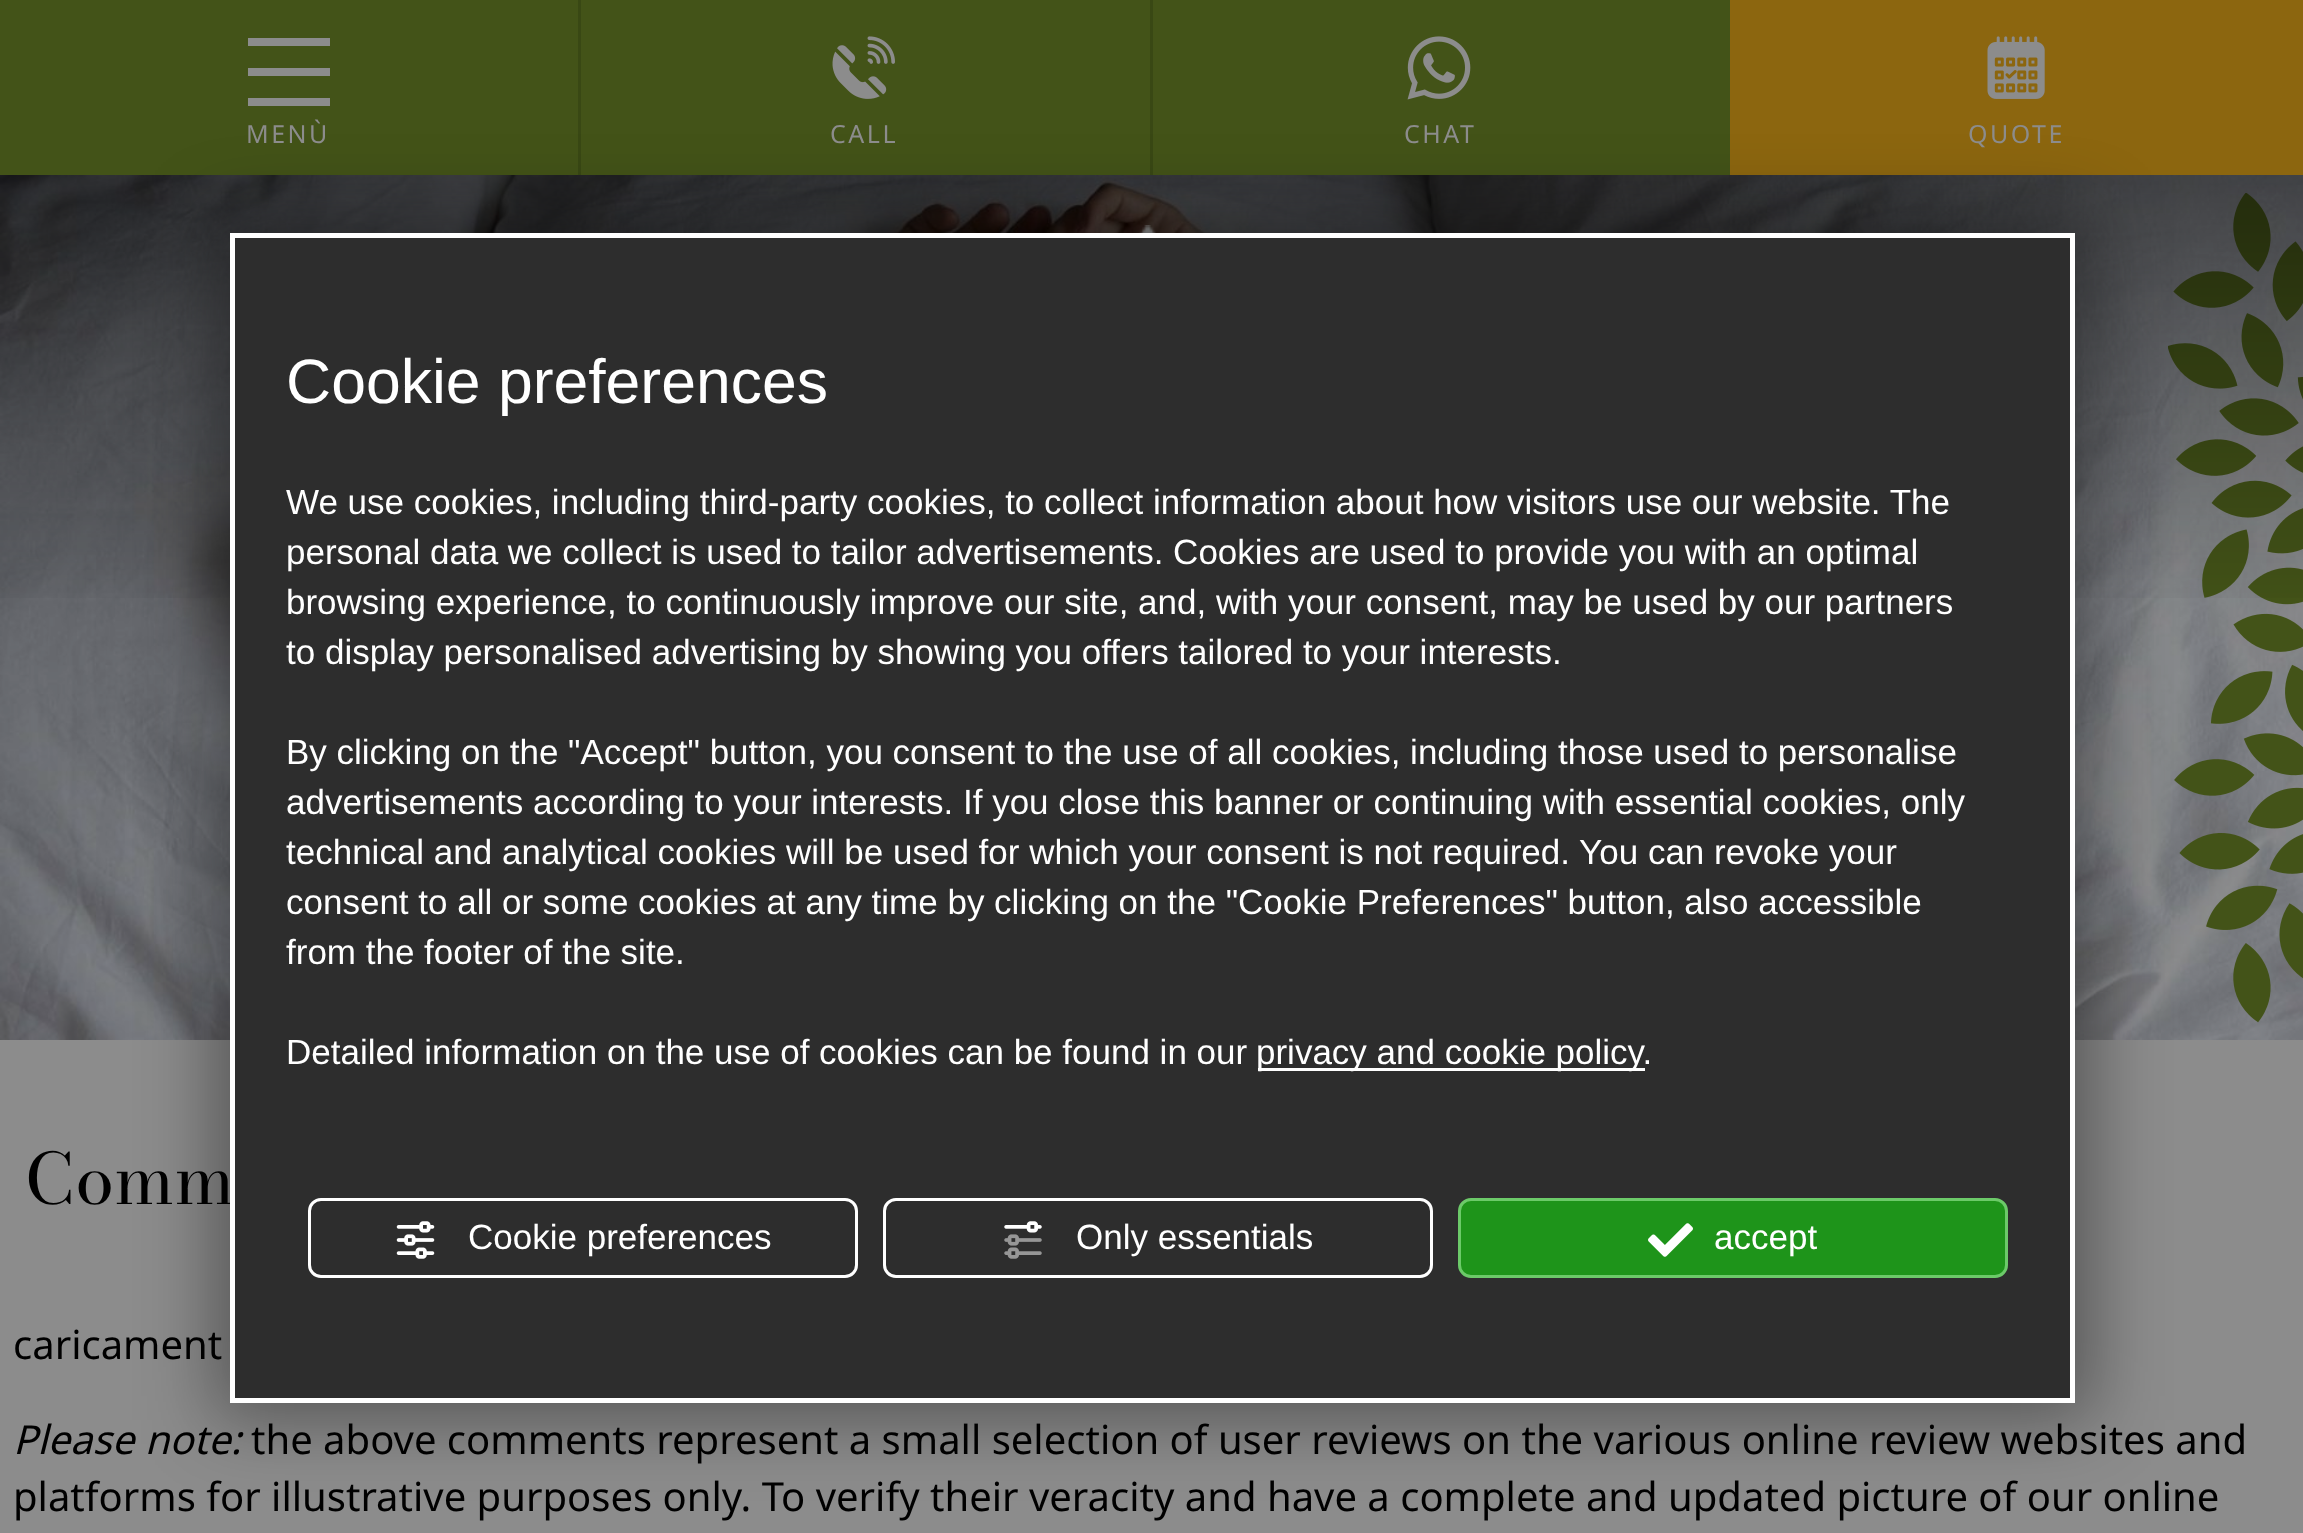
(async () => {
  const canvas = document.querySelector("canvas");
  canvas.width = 2303;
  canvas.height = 1533;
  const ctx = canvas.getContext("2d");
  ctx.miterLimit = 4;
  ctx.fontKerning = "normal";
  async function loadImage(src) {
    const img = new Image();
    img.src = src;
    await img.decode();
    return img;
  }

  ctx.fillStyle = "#8c8c8c";
  ctx.fillRect(0, 0, 2303, 1533);
  ctx.drawImage(await loadImage("img/6.png"), 0, 175, 2303, 865);
  ctx.drawImage(await loadImage("img/7.png"), 2168, 193, 135, 830);
  ctx.drawImage(await loadImage("img/1.png"), 0, 175, 2303, 423);
  for (const [x, y, w, h, color] of [
    [0, 0, 1730, 175, "#435318"],
    [248, 38, 82, 8, "#8c8c8c"],
    [248, 68, 82, 8, "#8c8c8c"],
    [248, 98, 82, 8, "#8c8c8c"],
    [1150, 0, 3, 175, "#394814"],
    [578, 0, 3, 175, "#394814"],
  ]) {
    ctx.fillStyle = color;
    ctx.fillRect(x, y, w, h);
  }
  ctx.drawImage(await loadImage("img/2.png"), 832, 36, 63, 63);
  ctx.drawImage(await loadImage("img/3.png"), 1407, 36, 64, 64);
  ctx.fillStyle = "#8c660f";
  ctx.fillRect(1730, 0, 573, 175);
  ctx.drawImage(await loadImage("img/4.png"), 1987, 36, 58, 63);
  ctx.drawImage(await loadImage("img/5.png"), 1139, 225, 17, 8);
  ctx.fillStyle = "rgba(0, 0, 0, 0.38)";
  ctx.filter = "blur(36px)";
  ctx.beginPath();
  ctx.rect(213, 215, 1880, 1205);
  ctx.fill();
  ctx.filter = "none";
  ctx.letterSpacing = "2.5px";
  ctx.font = "25px Noto Sans";
  ctx.fillStyle = "#8c8c8c";
  for (const [text, x, y] of [
    ["MENÙ", 246, 143],
    ["CALL", 830, 143],
    ["CHAT", 1404, 143],
    ["QUOTE", 1968, 143],
  ]) {
    ctx.fillText(text, x, y);
  }
  ctx.letterSpacing = "0px";
  ctx.font = "70px Bodoni Moda";
  ctx.fillStyle = "#000000";
  ctx.fillText("Comm", 25, 1204);
  ctx.font = "40px Noto Sans";
  ctx.fillText("caricament", 13, 1359);
  ctx.font = "italic 40px Noto Sans";
  ctx.fillText("Please note:", 13, 1454);
  ctx.font = "40px Noto Sans";
  ctx.fillText("the above comments represent a small selection of user reviews on the various online review websites and", 251, 1454);
  ctx.fillText("platforms for illustrative purposes only. To verify their veracity and have a complete and updated picture of our online", 13, 1511);
  ctx.fillStyle = "#2d2d2d";
  ctx.beginPath();
  ctx.rect(232.5, 235.5, 1840, 1165);
  ctx.fill();
  ctx.strokeStyle = "#ffffff";
  ctx.lineWidth = 5;
  ctx.stroke();
  ctx.font = "62.5px Liberation Sans";
  ctx.fillStyle = "#ffffff";
  ctx.fillText("Cookie preferences", 286, 403);
  ctx.font = "35px Liberation Sans";
  for (const [text, x, y] of [
    ["We use cookies, including third-party cookies, to collect information about how visitors use our website. The", 286, 514],
    ["personal data we collect is used to tailor advertisements. Cookies are used to provide you with an optimal", 286, 564],
    ["browsing experience, to continuously improve our site, and, with your consent, may be used by our partners", 286, 614],
    ["to display personalised advertising by showing you offers tailored to your interests.", 286, 664],
    ["By clicking on the \"Accept\" button, you consent to the use of all cookies, including those used to personalise", 286, 764],
    ["advertisements according to your interests. If you close this banner or continuing with essential cookies, only", 286, 814],
    ["technical and analytical cookies will be used for which your consent is not required. You can revoke your", 286, 864],
    ["consent to all or some cookies at any time by clicking on the \"Cookie Preferences\" button, also accessible", 286, 914],
    ["from the footer of the site.", 286, 964],
    ["Detailed information on the use of cookies can be found in our", 286, 1064],
  ]) {
    ctx.fillText(text, x, y);
  }
  ctx.fillRect(1258, 1068, 387, 3);
  ctx.fillText("privacy and cookie policy.", 1256, 1064);
  ctx.beginPath();
  ctx.roundRect(309.5, 1199.5, 547, 77, 11.5);
  ctx.lineWidth = 3;
  ctx.stroke();
  ctx.drawImage(await loadImage("img/8.png"), 396, 1221, 39, 38);
  ctx.fillText("Cookie preferences", 468, 1249);
  ctx.beginPath();
  ctx.roundRect(884.5, 1199.5, 547, 77, 11.5);
  ctx.stroke();
  ctx.drawImage(await loadImage("img/9.png"), 1004, 1221, 38, 38);
  ctx.fillText("Only essentials", 1076, 1249);
  ctx.fillStyle = "#1e941a";
  ctx.beginPath();
  ctx.roundRect(1459.5, 1199.5, 547, 77, 11.5);
  ctx.fill();
  ctx.strokeStyle = "#6cca69";
  ctx.stroke();
  ctx.drawImage(await loadImage("img/10.png"), 1648, 1223, 45, 34);
  ctx.fillStyle = "#ffffff";
  ctx.fillText("accept", 1714, 1249);
})();
